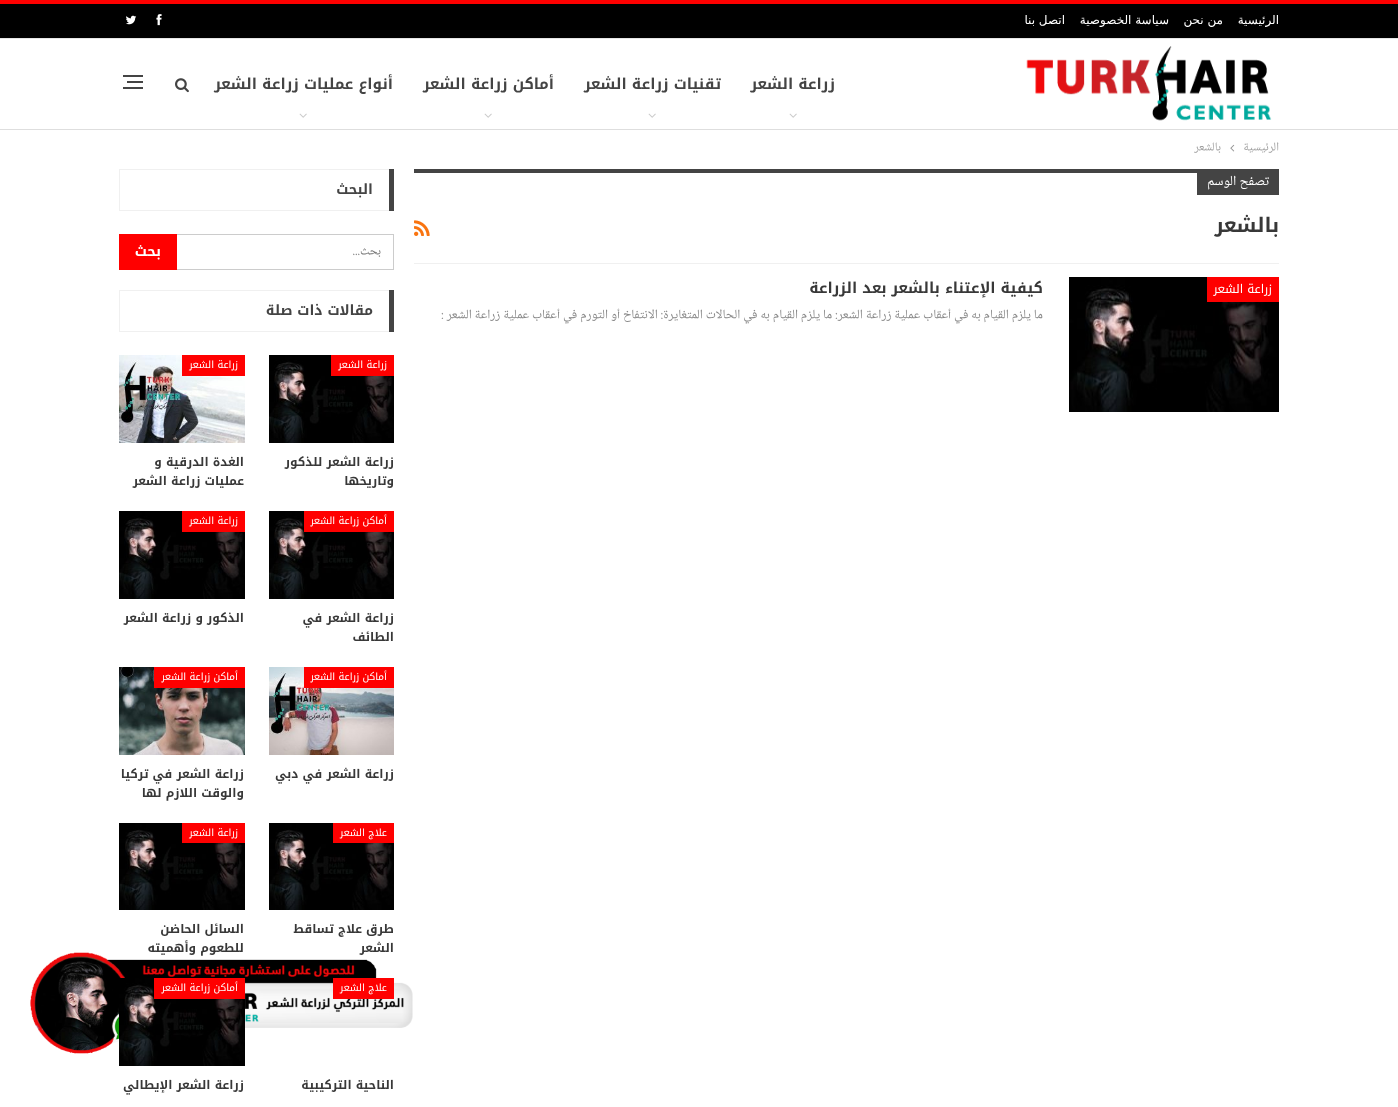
(async () => {
  const canvas = document.querySelector("canvas");
  canvas.width = 1398;
  canvas.height = 1107;
  const ctx = canvas.getContext("2d");
  ctx.miterLimit = 4;
  ctx.fontKerning = "normal";
  async function loadImage(src) {
    const img = new Image();
    img.src = src;
    await img.decode();
    return img;
  }

  ctx.fillStyle = "#ffffff";
  ctx.fillRect(0, 0, 1398, 1107);
  for (const [x, y, w, h, color] of [
    [0, 0, 1398, 4, "#ff0000"],
    [0, 129, 1398, 1, "#dedede"],
    [0, 4, 1398, 34, "#000000"],
    [0, 38, 1398, 1, "#e6e6e6"],
  ]) {
    ctx.fillStyle = color;
    ctx.fillRect(x, y, w, h);
  }
  ctx.drawImage(await loadImage("img/1.png"), 156, 14, 6, 12);
  ctx.drawImage(await loadImage("img/2.png"), 126, 15, 11, 10);
  ctx.drawImage(await loadImage("img/3.png"), 1026, 46, 246, 75);
  ctx.drawImage(await loadImage("img/4.png"), 789, 113, 8, 5);
  ctx.drawImage(await loadImage("img/4.png"), 648, 113, 8, 5);
  ctx.drawImage(await loadImage("img/4.png"), 484, 113, 8, 5);
  ctx.drawImage(await loadImage("img/4.png"), 299, 113, 8, 5);
  ctx.drawImage(await loadImage("img/5.png"), 175, 78, 14, 15);
  for (const [x, y, w, h, color] of [
    [127, 81, 16, 2, "#444444"],
    [123, 75, 20, 2, "#444444"],
    [123, 87, 20, 2, "#444444"],
  ]) {
    ctx.fillStyle = color;
    ctx.fillRect(x, y, w, h);
  }
  ctx.drawImage(await loadImage("img/6.png"), 1230, 144, 5, 8);
  for (const [x, y, w, h, color] of [
    [414, 263, 865, 1, "#f0f0f0"],
    [414, 169, 783, 4, "#444444"],
    [1197, 169, 82, 26, "#444444"],
  ]) {
    ctx.fillStyle = color;
    ctx.fillRect(x, y, w, h);
  }
  ctx.drawImage(await loadImage("img/7.png"), 414, 220, 16, 16);
  ctx.drawImage(await loadImage("img/8.png"), 1069, 277, 210, 135);
  ctx.fillStyle = "#ff0000";
  ctx.fillRect(1207, 277, 72, 25);
  ctx.strokeStyle = "#f0f0f0";
  ctx.strokeRect(119.5, 169.5, 274, 41);
  ctx.fillStyle = "#444444";
  ctx.fillRect(389, 169, 5, 42);
  ctx.strokeStyle = "#cccccc";
  ctx.strokeRect(119.5, 234.5, 274, 35);
  ctx.fillStyle = "#ff0000";
  ctx.fillRect(119, 234, 58, 36);
  ctx.strokeStyle = "#f0f0f0";
  ctx.strokeRect(119.5, 290.5, 274, 41);
  ctx.fillStyle = "#444444";
  ctx.fillRect(389, 290, 5, 42);
  ctx.drawImage(await loadImage("img/9.png"), 269, 355, 125, 88);
  ctx.fillStyle = "#ff0000";
  ctx.fillRect(331, 355, 63, 21);
  ctx.drawImage(await loadImage("img/10.png"), 119, 355, 126, 88);
  ctx.fillRect(182, 355, 63, 21);
  ctx.drawImage(await loadImage("img/9.png"), 269, 511, 125, 88);
  ctx.fillRect(304, 511, 90, 21);
  ctx.drawImage(await loadImage("img/11.png"), 119, 511, 126, 88);
  ctx.fillRect(182, 511, 63, 21);
  ctx.drawImage(await loadImage("img/12.png"), 269, 667, 125, 88);
  ctx.fillRect(304, 667, 90, 21);
  ctx.drawImage(await loadImage("img/13.png"), 119, 667, 126, 88);
  ctx.fillRect(154, 667, 91, 21);
  ctx.drawImage(await loadImage("img/14.png"), 269, 823, 125, 87);
  ctx.fillRect(333, 823, 61, 20);
  ctx.drawImage(await loadImage("img/15.png"), 119, 823, 126, 87);
  ctx.fillRect(182, 823, 63, 20);
  ctx.drawImage(await loadImage("img/16.png"), 30, 952, 383, 102);
  ctx.fillRect(333, 978, 61, 21);
  ctx.drawImage(await loadImage("img/11.png"), 119, 978, 126, 88);
  ctx.fillRect(154, 978, 91, 21);
  ctx.direction = "rtl";
  ctx.font = "12px DejaVu Sans";
  ctx.fillStyle = "#ffffff";
  for (const [text, x, y] of [
    ["الرئيسية", 1279, 24],
    ["من نحن", 1223, 24],
    ["سياسة الخصوصية", 1169, 24],
    ["اتصل بنا", 1065, 24],
  ]) {
    ctx.fillText(text, x, y);
  }
  ctx.font = "bold 15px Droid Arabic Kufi";
  ctx.fillStyle = "#444444";
  for (const [text, x, y] of [
    ["زراعة الشعر", 835, 89],
    ["تقنيات زراعة الشعر", 721, 89],
    ["أماكن زراعة الشعر", 554, 89],
    ["أنواع عمليات زراعة الشعر", 393, 89],
  ]) {
    ctx.fillText(text, x, y);
  }
  ctx.font = "12px Noto Naskh Arabic UI";
  ctx.fillStyle = "#9e9e9e";
  ctx.fillText("الرئيسية", 1279, 152);
  ctx.fillText("بالشعر", 1221, 152);
  ctx.font = "14px Noto Naskh Arabic UI";
  ctx.fillStyle = "#ffffff";
  ctx.fillText("تصفح الوسم", 1269, 187);
  ctx.font = "bold 20px Droid Arabic Kufi";
  ctx.fillStyle = "#383838";
  ctx.fillText("بالشعر", 1279, 232);
  ctx.font = "12px Noto Kufi Arabic";
  ctx.fillStyle = "#ffffff";
  ctx.fillText("زراعة الشعر", 1272, 293);
  ctx.font = "bold 15px Droid Arabic Kufi";
  ctx.fillStyle = "#383838";
  ctx.fillText("كيفية الإعتناء بالشعر بعد الزراعة", 1043, 293);
  ctx.font = "13px Noto Naskh Arabic UI";
  ctx.fillStyle = "#888888";
  ctx.fillText("ما يلزم القيام به في أعقاب عملية زراعة الشعر: ما يلزم القيام به في الحالات المتغايرة: الانتفاخ أو التورم في أعقاب عملية زراعة الشعر :", 1043, 320);
  ctx.font = "bold 14px Droid Arabic Kufi";
  ctx.fillStyle = "#444444";
  ctx.fillText("البحث", 373, 194);
  ctx.font = "12px Noto Naskh Arabic UI";
  ctx.fillStyle = "#757575";
  ctx.fillText("بحث...", 381, 256);
  ctx.font = "bold 14px Droid Arabic Kufi";
  ctx.fillStyle = "#ffffff";
  ctx.fillText("بحث", 161, 256);
  ctx.fillStyle = "#444444";
  ctx.fillText("مقالات ذات صلة", 373, 315);
  ctx.font = "10px Noto Kufi Arabic";
  ctx.fillStyle = "#ffffff";
  ctx.fillText("زراعة الشعر", 387, 368);
  ctx.font = "bold 12px Droid Arabic Kufi";
  ctx.fillStyle = "#383838";
  ctx.fillText("زراعة الشعر للذكور", 394, 466);
  ctx.fillText("وتاريخها", 394, 485);
  ctx.font = "10px Noto Kufi Arabic";
  ctx.fillStyle = "#ffffff";
  ctx.fillText("زراعة الشعر", 238, 368);
  ctx.font = "bold 12px Droid Arabic Kufi";
  ctx.fillStyle = "#383838";
  ctx.fillText("الغدة الدرقية و", 244, 466);
  ctx.fillText("عمليات زراعة الشعر", 244, 485);
  ctx.font = "10px Noto Kufi Arabic";
  ctx.fillStyle = "#ffffff";
  ctx.fillText("أماكن زراعة الشعر", 387, 524);
  ctx.font = "bold 12px Droid Arabic Kufi";
  ctx.fillStyle = "#383838";
  ctx.fillText("زراعة الشعر في", 394, 622);
  ctx.fillText("الطائف", 394, 641);
  ctx.font = "10px Noto Kufi Arabic";
  ctx.fillStyle = "#ffffff";
  ctx.fillText("زراعة الشعر", 238, 524);
  ctx.font = "bold 12px Droid Arabic Kufi";
  ctx.fillStyle = "#383838";
  ctx.fillText("الذكور و زراعة الشعر", 244, 622);
  ctx.font = "10px Noto Kufi Arabic";
  ctx.fillStyle = "#ffffff";
  ctx.fillText("أماكن زراعة الشعر", 387, 680);
  ctx.font = "bold 12px Droid Arabic Kufi";
  ctx.fillStyle = "#383838";
  ctx.fillText("زراعة الشعر في دبي", 394, 778);
  ctx.font = "10px Noto Kufi Arabic";
  ctx.fillStyle = "#ffffff";
  ctx.fillText("أماكن زراعة الشعر", 238, 680);
  ctx.font = "bold 12px Droid Arabic Kufi";
  ctx.fillStyle = "#383838";
  ctx.fillText("زراعة الشعر في تركيا", 244, 778);
  ctx.fillText("والوقت اللازم لها", 244, 797);
  ctx.font = "10px Noto Kufi Arabic";
  ctx.fillStyle = "#ffffff";
  ctx.fillText("علاج الشعر", 387, 836);
  ctx.font = "bold 12px Droid Arabic Kufi";
  ctx.fillStyle = "#383838";
  ctx.fillText("طرق علاج تساقط", 394, 933);
  ctx.fillText("الشعر", 394, 952);
  ctx.font = "10px Noto Kufi Arabic";
  ctx.fillStyle = "#ffffff";
  ctx.fillText("زراعة الشعر", 238, 836);
  ctx.font = "bold 12px Droid Arabic Kufi";
  ctx.fillStyle = "#383838";
  ctx.fillText("السائل الحاضن", 244, 933);
  ctx.fillText("للطعوم وأهميته", 244, 952);
  ctx.font = "10px Noto Kufi Arabic";
  ctx.fillStyle = "#ffffff";
  ctx.fillText("علاج الشعر", 387, 991);
  ctx.font = "bold 12px Droid Arabic Kufi";
  ctx.fillStyle = "#383838";
  ctx.fillText("الناحية التركيبية", 394, 1089);
  ctx.font = "10px Noto Kufi Arabic";
  ctx.fillStyle = "#ffffff";
  ctx.fillText("أماكن زراعة الشعر", 238, 991);
  ctx.font = "bold 12px Droid Arabic Kufi";
  ctx.fillStyle = "#383838";
  ctx.fillText("زراعة الشعر الإيطالي", 244, 1089);
})();
